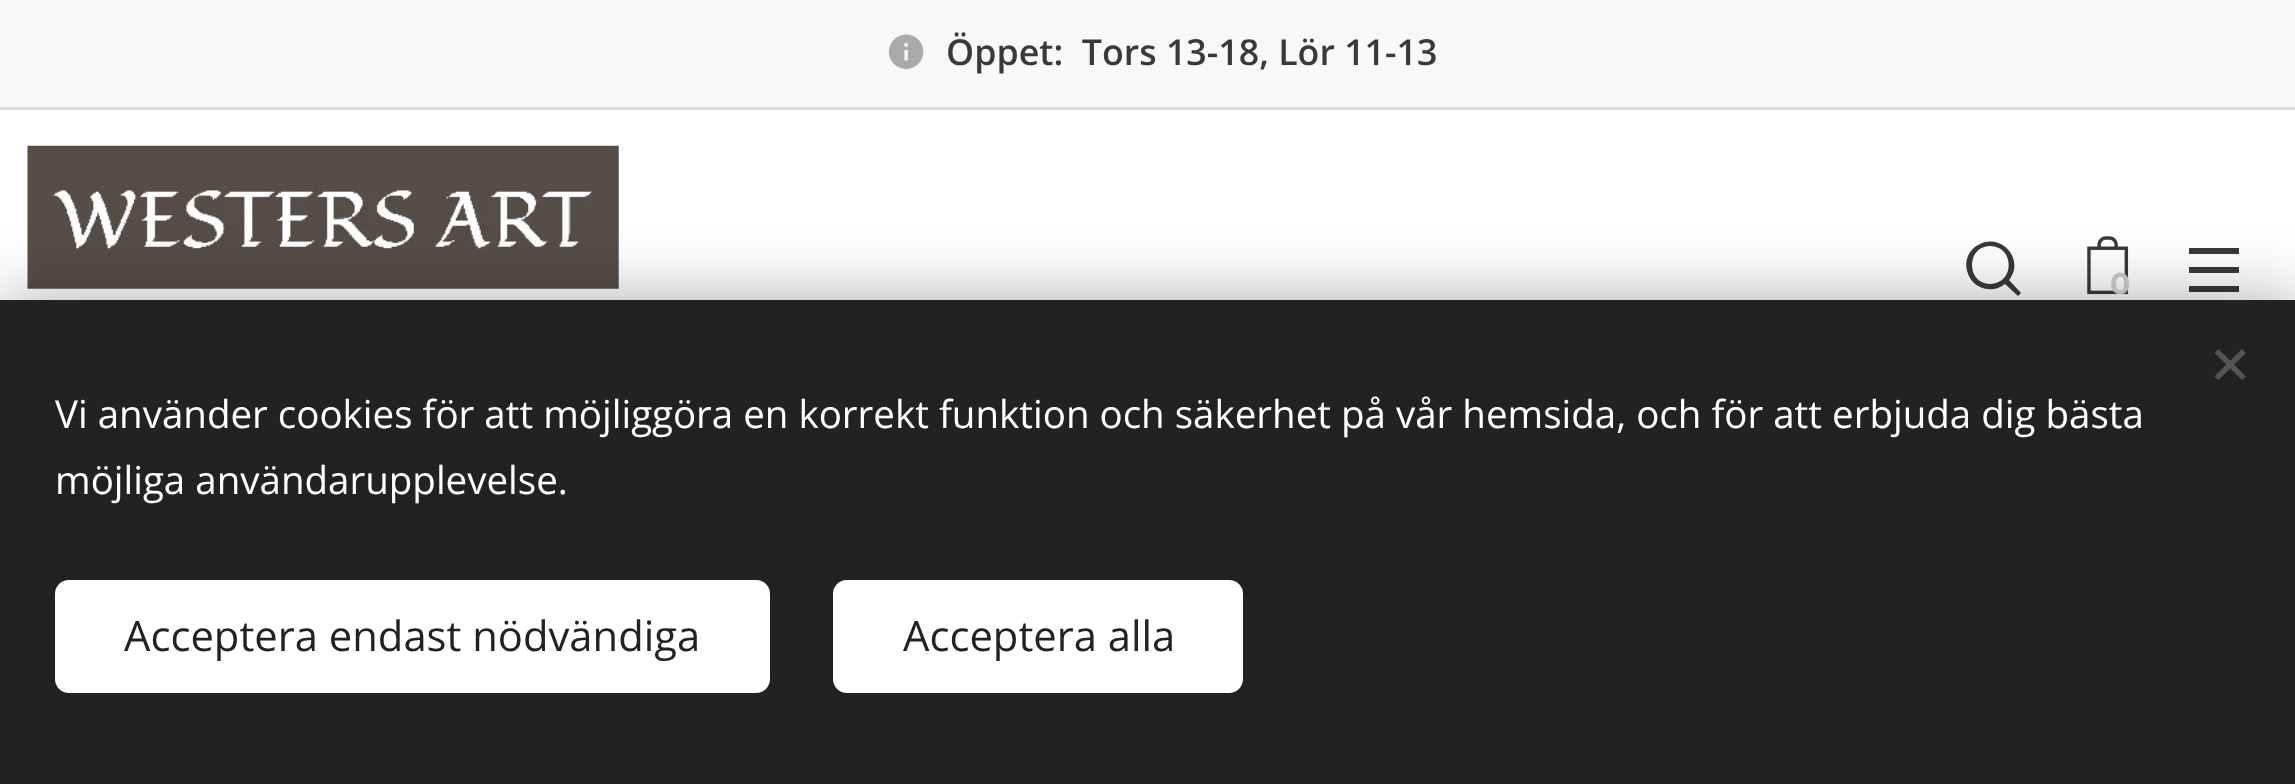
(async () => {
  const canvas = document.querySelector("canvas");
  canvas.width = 2295;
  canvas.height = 784;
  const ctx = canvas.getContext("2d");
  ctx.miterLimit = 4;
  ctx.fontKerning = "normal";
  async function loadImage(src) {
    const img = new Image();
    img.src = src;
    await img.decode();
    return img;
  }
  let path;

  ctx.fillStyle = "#ffffff";
  ctx.fillRect(0, 0, 2295, 784);
  ctx.fillStyle = "#f9f7fa";
  ctx.fillRect(0, 0, 2295, 107);
  ctx.drawImage(await loadImage("img/1.png"), 888, 34, 36, 35);
  ctx.fillStyle = "#dbdbdb";
  ctx.fillRect(0, 107, 2295, 3);
  ctx.drawImage(await loadImage("img/2.png"), 27, 145, 592, 144);
  ctx.fillStyle = "#393939";
  path = new Path2D("M2021 293L2009 280C2025 261 2003 233 1980 244C1975 246 1970 251 1968 256C1965 263 1966 271 1970 278C1977 290 1994 293 2005 284L2018 296ZM1990 284C1966 284 1966 246 1990 246C2015 246 2015 284 1990 284Z");
  ctx.fill(path);
  ctx.drawImage(await loadImage("img/3.png"), 2087, 236, 42, 59);
  for (const [x, y, w, h, color] of [
    [2189, 267, 50, 6, "#393939"],
    [2189, 248, 50, 6, "#393939"],
    [2189, 286, 50, 6, "#393939"],
  ]) {
    ctx.fillStyle = color;
    ctx.fillRect(x, y, w, h);
  }
  ctx.fillStyle = "rgba(0, 0, 0, 0.33)";
  ctx.filter = "blur(34.5px)";
  ctx.beginPath();
  ctx.rect(0, 300, 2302, 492);
  ctx.fill();
  ctx.filter = "none";
  ctx.fillStyle = "#222222";
  ctx.fillRect(0, 300, 2295, 484);
  ctx.fillStyle = "#555555";
  path = new Path2D("M2214.5 376.5L2242 349L2246 353L2218.5 380Z");
  ctx.fill(path);
  path = new Path2D("M2218.5 349L2246 376.5L2242 380L2214.5 353Z");
  ctx.fill(path);
  ctx.fillStyle = "#ffffff";
  ctx.beginPath();
  ctx.roundRect(55, 580, 715, 113, 14);
  ctx.fill();
  ctx.beginPath();
  ctx.roundRect(833, 580, 410, 113, 14);
  ctx.fill();
  ctx.font = "600 35.75px Open Sans";
  ctx.fillStyle = "#393939";
  ctx.fillText("Öppet:  Tors 13-18, Lör 11-13", 946, 65);
  ctx.font = "bold 30px Montserrat";
  ctx.fillStyle = "#bababa";
  ctx.fillText("0", 2110, 294);
  ctx.font = "38.5px Open Sans";
  ctx.fillStyle = "#ffffff";
  ctx.fillText("Vi använder cookies för att möjliggöra en korrekt funktion och säkerhet på vår hemsida, och för att erbjuda dig bästa", 55, 428);
  ctx.fillText("möjliga användarupplevelse.", 55, 494);
  ctx.font = "41.75px Open Sans";
  ctx.fillStyle = "#222222";
  ctx.fillText("Acceptera endast nödvändiga", 124, 651);
  ctx.fillText("Acceptera alla", 903, 651);
})();
